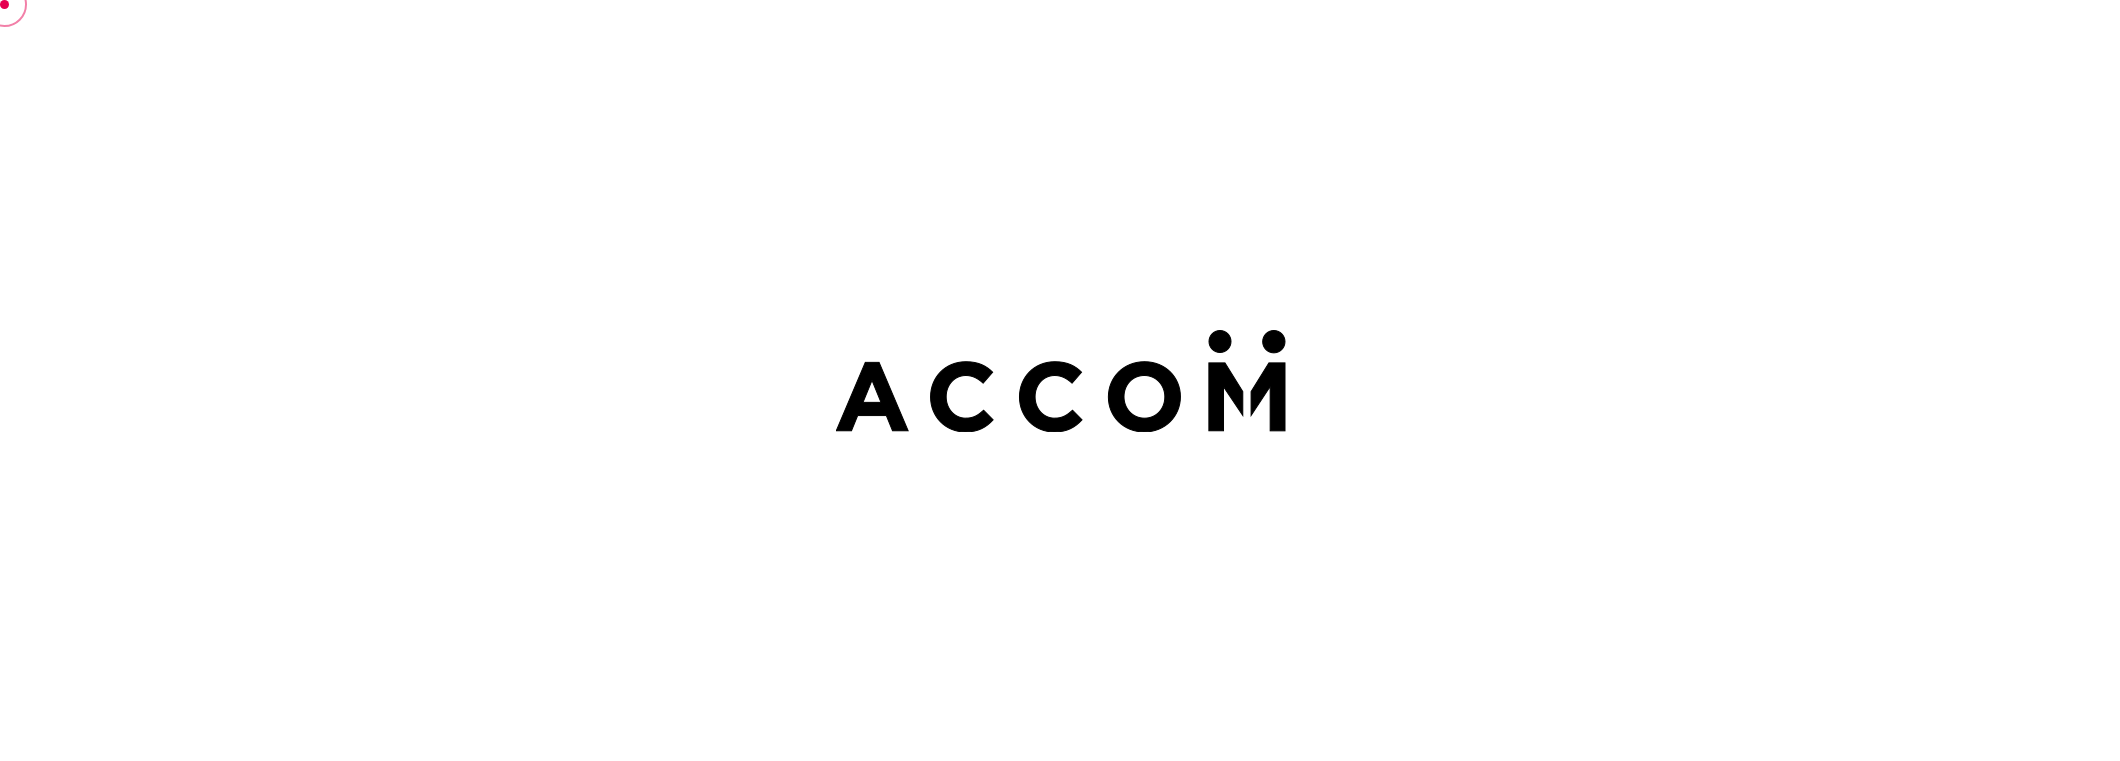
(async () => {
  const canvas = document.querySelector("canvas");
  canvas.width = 2120;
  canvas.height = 761;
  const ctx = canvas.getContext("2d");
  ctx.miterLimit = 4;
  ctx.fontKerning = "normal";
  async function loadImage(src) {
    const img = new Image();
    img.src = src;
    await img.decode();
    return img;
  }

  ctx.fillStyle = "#ffffff";
  ctx.fillRect(0, 0, 2120, 761);
  ctx.beginPath();
  ctx.arc(4.5, 4.5, 21.5, 0, Math.PI * 2);
  ctx.strokeStyle = "#f280a8";
  ctx.lineWidth = 2;
  ctx.stroke();
  ctx.fillStyle = "#e50050";
  ctx.beginPath();
  ctx.arc(4.5, 4.5, 4.5, 0, Math.PI * 2);
  ctx.fill();
  ctx.drawImage(await loadImage("img/1.png"), 836, 330, 450, 102);
})();
